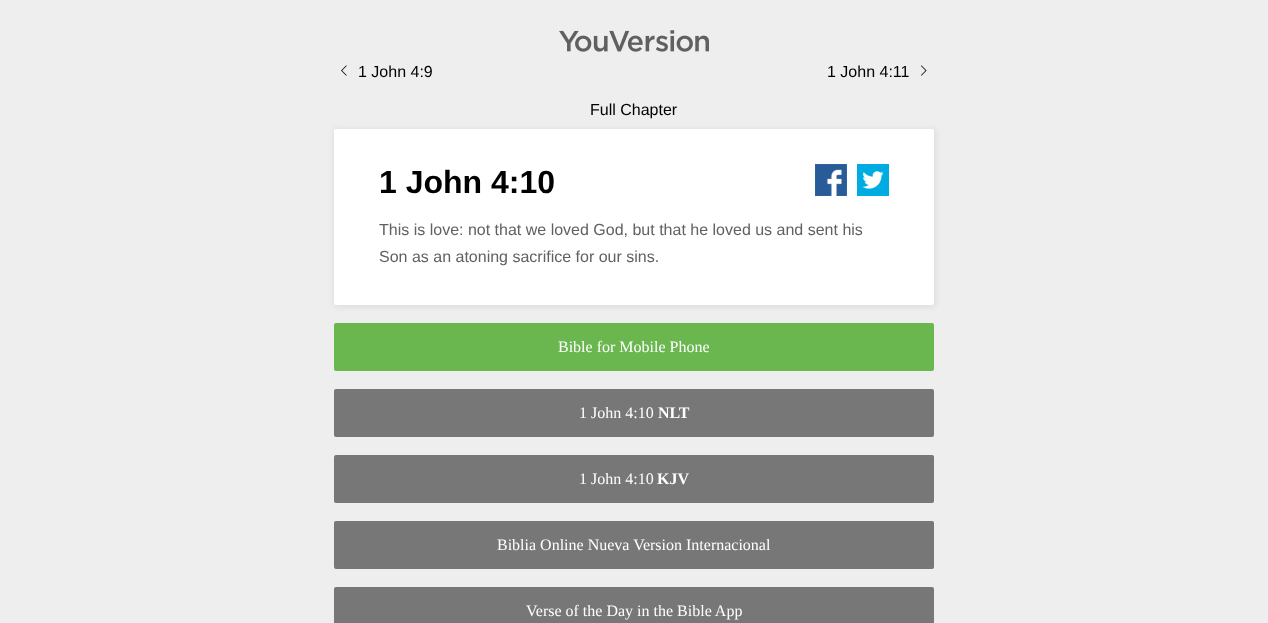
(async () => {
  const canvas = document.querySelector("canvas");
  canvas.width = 1268;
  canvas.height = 623;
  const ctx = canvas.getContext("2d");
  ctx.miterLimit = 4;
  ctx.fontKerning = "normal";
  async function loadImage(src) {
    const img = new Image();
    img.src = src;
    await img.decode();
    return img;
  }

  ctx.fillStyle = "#eeeeee";
  ctx.fillRect(0, 0, 1268, 623);
  ctx.drawImage(await loadImage("img/1.png"), 559, 30, 150, 22);
  ctx.drawImage(await loadImage("img/2.png"), 341, 65, 6, 11);
  ctx.drawImage(await loadImage("img/3.png"), 921, 65, 6, 11);
  ctx.fillStyle = "rgba(0, 0, 0, 0.07)";
  ctx.filter = "blur(3px)";
  ctx.beginPath();
  ctx.roundRect(334, 129, 602, 178, 3);
  ctx.fill();
  ctx.filter = "none";
  ctx.fillStyle = "#ffffff";
  ctx.beginPath();
  ctx.roundRect(334, 129, 600, 176, 2);
  ctx.fill();
  ctx.drawImage(await loadImage("img/4.png"), 815, 164, 32, 32);
  ctx.drawImage(await loadImage("img/5.png"), 857, 164, 32, 32);
  ctx.fillStyle = "#6ab750";
  ctx.beginPath();
  ctx.roundRect(334, 323, 600, 48, 2);
  ctx.fill();
  ctx.fillStyle = "#777777";
  ctx.beginPath();
  ctx.roundRect(334, 389, 600, 48, 2);
  ctx.fill();
  ctx.beginPath();
  ctx.roundRect(334, 455, 600, 48, 2);
  ctx.fill();
  ctx.beginPath();
  ctx.roundRect(334, 521, 600, 48, 2);
  ctx.fill();
  ctx.beginPath();
  ctx.roundRect(334, 587, 600, 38, 2);
  ctx.fill();
  ctx.font = "16px Liberation Sans";
  ctx.fillStyle = "#000000";
  for (const [text, x, y] of [
    ["1 John 4:9", 358, 77],
    ["1 John 4:11", 827, 77],
    ["Full Chapter", 590, 115],
  ]) {
    ctx.fillText(text, x, y);
  }
  ctx.font = "bold 32px Liberation Sans";
  ctx.fillText("1 John 4:10", 379, 193);
  ctx.font = "16px Liberation Sans";
  ctx.fillStyle = "#616161";
  ctx.fillText("This is love: not that we loved God, but that he loved us and sent his", 379, 235);
  ctx.fillText("Son as an atoning sacrifice for our sins.", 379, 262);
  ctx.font = "16px Liberation Serif";
  ctx.fillStyle = "#ffffff";
  ctx.fillText("Bible for Mobile Phone", 558, 352);
  ctx.fillText("1 John 4:10", 579, 418);
  ctx.font = "bold 16px Liberation Serif";
  ctx.fillText("NLT", 658, 418);
  ctx.font = "16px Liberation Serif";
  ctx.fillText("1 John 4:10", 579, 484);
  ctx.font = "bold 16px Liberation Serif";
  ctx.fillText("KJV", 657, 484);
  ctx.font = "16px Liberation Serif";
  ctx.fillText("Biblia Online Nueva Version Internacional", 497, 550);
  ctx.fillText("Verse of the Day in the Bible App", 526, 616);
})();
